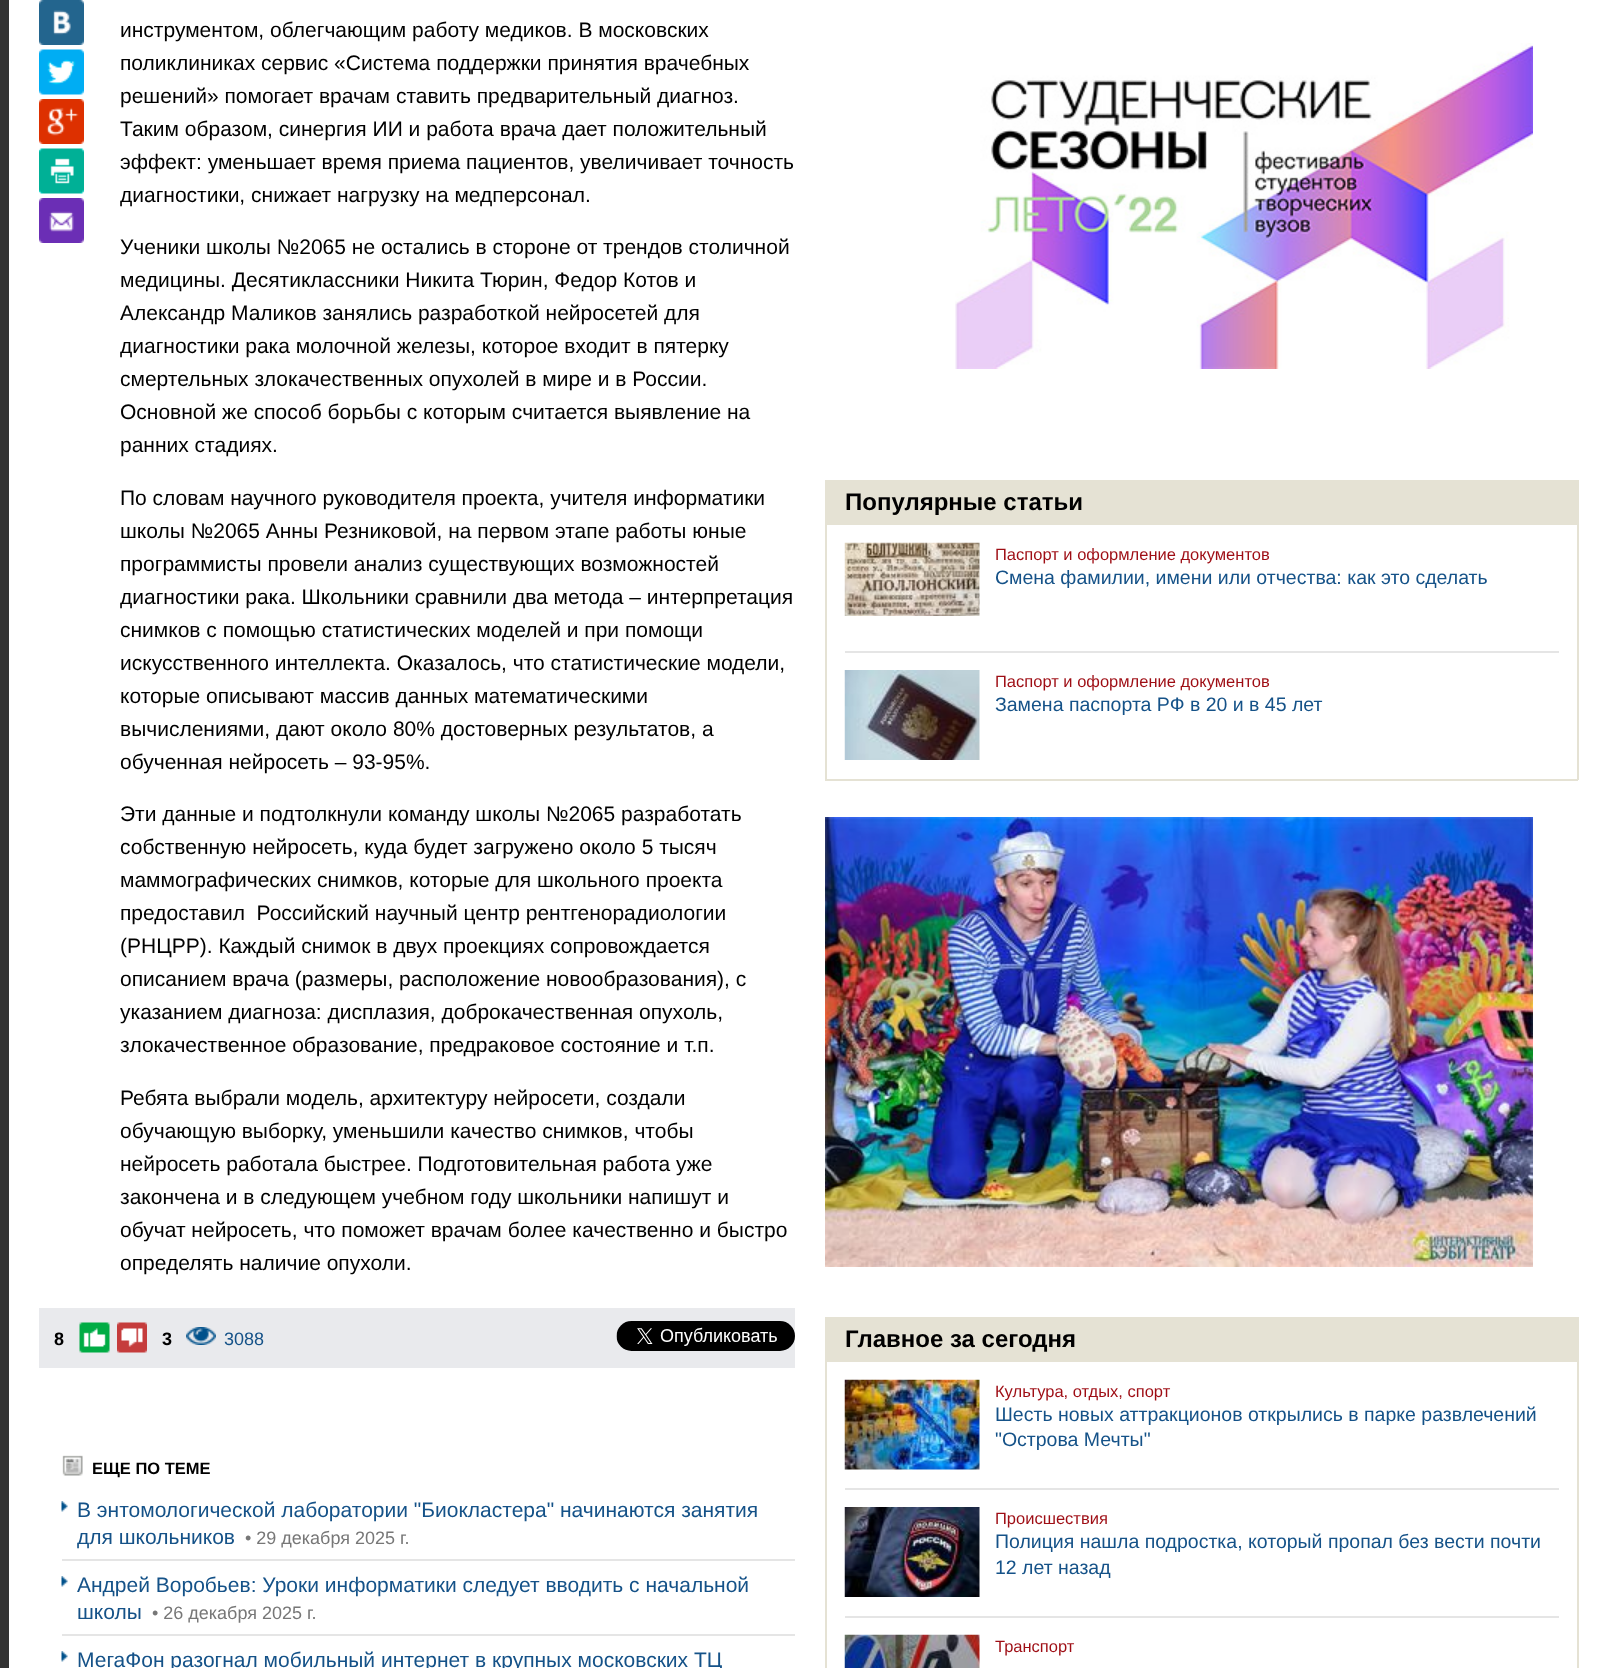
(async () => {
  const canvas = document.querySelector("canvas");
  canvas.width = 1604;
  canvas.height = 1668;
  const ctx = canvas.getContext("2d");
  ctx.miterLimit = 4;
  ctx.fontKerning = "normal";
  async function loadImage(src) {
    const img = new Image();
    img.src = src;
    await img.decode();
    return img;
  }

  ctx.fillStyle = "#ffffff";
  ctx.fillRect(0, 0, 1604, 1668);
  ctx.fillStyle = "#333333";
  ctx.fillRect(0, 0, 9, 1668);
  ctx.drawImage(await loadImage("img/1.png"), 39, 0, 45, 45);
  ctx.drawImage(await loadImage("img/2.png"), 39, 49, 45, 46);
  ctx.drawImage(await loadImage("img/3.png"), 39, 99, 45, 45);
  ctx.drawImage(await loadImage("img/4.png"), 39, 148, 45, 46);
  ctx.drawImage(await loadImage("img/5.png"), 39, 198, 45, 45);
  ctx.fillStyle = "#e9eaed";
  ctx.fillRect(39, 1308, 756, 60);
  ctx.drawImage(await loadImage("img/6.png"), 79, 1322, 31, 31);
  ctx.drawImage(await loadImage("img/7.png"), 117, 1322, 30, 31);
  ctx.drawImage(await loadImage("img/8.png"), 186, 1327, 30, 18);
  ctx.drawImage(await loadImage("img/9.png"), 616, 1321, 179, 30);
  ctx.drawImage(await loadImage("img/10.png"), 62, 1455, 21, 21);
  ctx.drawImage(await loadImage("img/11.png"), 61, 1501, 7, 11);
  ctx.fillStyle = "#e5e5e5";
  ctx.fillRect(62, 1559, 733, 2);
  ctx.drawImage(await loadImage("img/11.png"), 61, 1576, 7, 11);
  ctx.fillRect(62, 1634, 733, 2);
  ctx.drawImage(await loadImage("img/11.png"), 61, 1651, 7, 11);
  ctx.drawImage(await loadImage("img/12.png"), 955, 43, 578, 326);
  for (const [x, y, w, h, color] of [
    [1577, 480, 2, 300, "#e5e2d4"],
    [825, 779, 753, 2, "#e5e2d4"],
    [825, 480, 2, 300, "#e5e2d4"],
    [827, 480, 750, 45, "#e5e2d4"],
    [845, 651, 714, 2, "#e5e5e5"],
  ]) {
    ctx.fillStyle = color;
    ctx.fillRect(x, y, w, h);
  }
  ctx.drawImage(await loadImage("img/13.png"), 844, 542, 136, 74);
  ctx.drawImage(await loadImage("img/14.png"), 844, 670, 136, 90);
  ctx.drawImage(await loadImage("img/15.png"), 825, 817, 708, 450);
  for (const [x, y, w, h, color] of [
    [1577, 1317, 2, 351, "#e5e2d4"],
    [825, 1317, 2, 351, "#e5e2d4"],
    [827, 1317, 750, 45, "#e5e2d4"],
    [845, 1488, 714, 2, "#e5e5e5"],
  ]) {
    ctx.fillStyle = color;
    ctx.fillRect(x, y, w, h);
  }
  ctx.drawImage(await loadImage("img/16.png"), 844, 1379, 136, 91);
  ctx.fillRect(845, 1616, 714, 2);
  ctx.drawImage(await loadImage("img/17.png"), 844, 1507, 136, 90);
  ctx.drawImage(await loadImage("img/18.png"), 844, 1634, 136, 34);
  ctx.font = "21px Liberation Sans";
  ctx.fillStyle = "#000000";
  for (const [text, x, y] of [
    ["инструментом, облегчающим работу медиков. В московских", 120, 37],
    ["поликлиниках сервис «Система поддержки принятия врачебных", 120, 70],
    ["решений» помогает врачам ставить предварительный диагноз.", 120, 103],
    ["Таким образом, синергия ИИ и работа врача дает положительный", 120, 136],
    ["эффект: уменьшает время приема пациентов, увеличивает точность", 120, 169],
    ["диагностики, снижает нагрузку на медперсонал.", 120, 202],
    ["Ученики школы №2065 не остались в стороне от трендов столичной", 120, 254],
    ["медицины. Десятиклассники Никита Тюрин, Федор Котов и", 120, 287],
    ["Александр Маликов занялись разработкой нейросетей для", 120, 320],
    ["диагностики рака молочной железы, которое входит в пятерку", 120, 353],
    ["смертельных злокачественных опухолей в мире и в России.", 120, 386],
    ["Основной же способ борьбы с которым считается выявление на", 120, 419],
    ["ранних стадиях.", 120, 452],
    ["По словам научного руководителя проекта, учителя информатики", 120, 505],
    ["школы №2065 Анны Резниковой, на первом этапе работы юные", 120, 538],
    ["программисты провели анализ существующих возможностей", 120, 571],
    ["диагностики рака. Школьники сравнили два метода – интерпретация", 120, 604],
    ["снимков с помощью статистических моделей и при помощи", 120, 637],
    ["искусственного интеллекта. Оказалось, что статистические модели,", 120, 670],
    ["которые описывают массив данных математическими", 120, 703],
    ["вычислениями, дают около 80% достоверных результатов, а", 120, 736],
    ["обученная нейросеть – 93-95%.", 120, 769],
    ["Эти данные и подтолкнули команду школы №2065 разработать", 120, 821],
    ["собственную нейросеть, куда будет загружено около 5 тысяч", 120, 854],
    ["маммографических снимков, которые для школьного проекта", 120, 887],
    ["предоставил  Российский научный центр рентгенорадиологии", 120, 920],
    ["(РНЦРР). Каждый снимок в двух проекциях сопровождается", 120, 953],
    ["описанием врача (размеры, расположение новообразования), с", 120, 986],
    ["указанием диагноза: дисплазия, доброкачественная опухоль,", 120, 1019],
    ["злокачественное образование, предраковое состояние и т.п.", 120, 1052],
    ["Ребята выбрали модель, архитектуру нейросети, создали", 120, 1105],
    ["обучающую выборку, уменьшили качество снимков, чтобы", 120, 1138],
    ["нейросеть работала быстрее. Подготовительная работа уже", 120, 1171],
    ["закончена и в следующем учебном году школьники напишут и", 120, 1204],
    ["обучат нейросеть, что поможет врачам более качественно и быстро", 120, 1237],
    ["определять наличие опухоли.", 120, 1270],
  ]) {
    ctx.fillText(text, x, y);
  }
  ctx.font = "bold 18px Liberation Sans";
  ctx.fillText("8", 54, 1345);
  ctx.fillText("3", 162, 1345);
  ctx.font = "18px Liberation Sans";
  ctx.fillStyle = "#155288";
  ctx.fillText("3088", 224, 1345);
  ctx.font = "bold 16.5px Liberation Sans";
  ctx.fillStyle = "#000000";
  ctx.fillText("ЕЩЕ ПО ТЕМЕ", 92, 1474);
  ctx.font = "21px Liberation Sans";
  ctx.fillStyle = "#155288";
  ctx.fillText("В энтомологической лаборатории \"Биокластера\" начинаются занятия", 77, 1517);
  ctx.fillText("для школьников", 77, 1544);
  ctx.font = "18px Liberation Sans";
  ctx.fillStyle = "#777777";
  ctx.fillText("• 29 декабря 2025 г.", 245, 1544);
  ctx.font = "21px Liberation Sans";
  ctx.fillStyle = "#155288";
  ctx.fillText("Андрей Воробьев: Уроки информатики следует вводить с начальной", 77, 1592);
  ctx.fillText("школы", 77, 1619);
  ctx.font = "18px Liberation Sans";
  ctx.fillStyle = "#777777";
  ctx.fillText("• 26 декабря 2025 г.", 152, 1619);
  ctx.font = "21px Liberation Sans";
  ctx.fillStyle = "#155288";
  ctx.fillText("МегаФон разогнал мобильный интернет в крупных московских ТЦ", 77, 1667);
  ctx.font = "bold 24px Liberation Sans";
  ctx.fillStyle = "#000000";
  ctx.fillText("Популярные статьи", 845, 510);
  ctx.font = "16.5px Liberation Sans";
  ctx.fillStyle = "#9e0d14";
  ctx.fillText("Паспорт и оформление документов", 995, 560);
  ctx.font = "19.5px Liberation Sans";
  ctx.fillStyle = "#155288";
  ctx.fillText("Смена фамилии, имени или отчества: как это сделать", 995, 584);
  ctx.font = "16.5px Liberation Sans";
  ctx.fillStyle = "#9e0d14";
  ctx.fillText("Паспорт и оформление документов", 995, 687);
  ctx.font = "19.5px Liberation Sans";
  ctx.fillStyle = "#155288";
  ctx.fillText("Замена паспорта РФ в 20 и в 45 лет", 995, 711);
  ctx.font = "bold 24px Liberation Sans";
  ctx.fillStyle = "#000000";
  ctx.fillText("Главное за сегодня", 845, 1347);
  ctx.font = "16.5px Liberation Sans";
  ctx.fillStyle = "#9e0d14";
  ctx.fillText("Культура, отдых, спорт", 995, 1397);
  ctx.font = "19.5px Liberation Sans";
  ctx.fillStyle = "#155288";
  ctx.fillText("Шесть новых аттракционов открылись в парке развлечений", 995, 1421);
  ctx.fillText("\"Острова Мечты\"", 995, 1446);
  ctx.font = "16.5px Liberation Sans";
  ctx.fillStyle = "#9e0d14";
  ctx.fillText("Происшествия", 995, 1524);
  ctx.font = "19.5px Liberation Sans";
  ctx.fillStyle = "#155288";
  ctx.fillText("Полиция нашла подростка, который пропал без вести почти", 995, 1548);
  ctx.fillText("12 лет назад", 995, 1574);
  ctx.font = "16.5px Liberation Sans";
  ctx.fillStyle = "#9e0d14";
  ctx.fillText("Транспорт", 995, 1652);
})();
